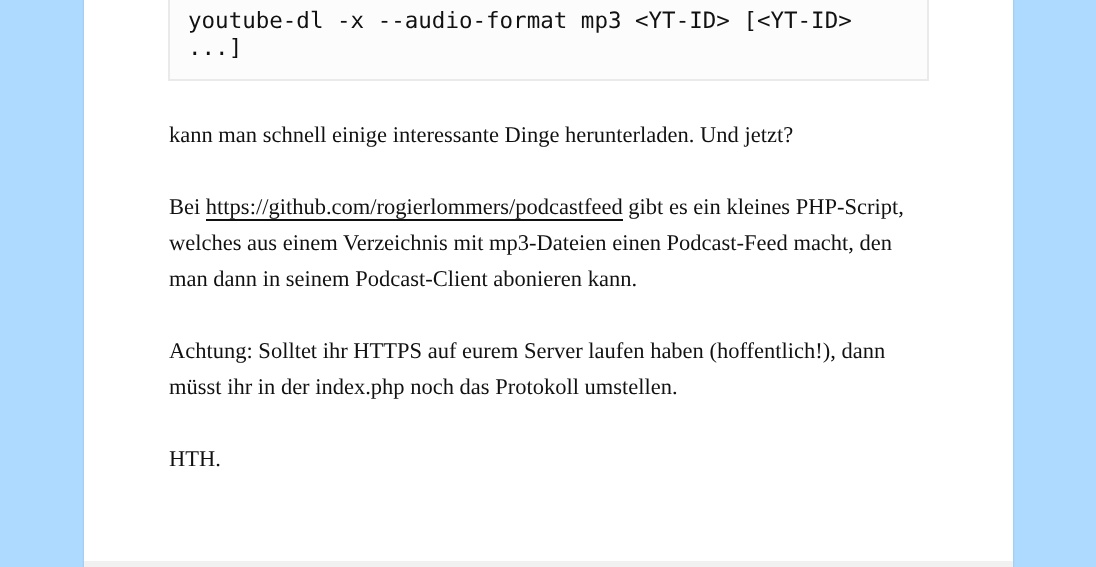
(async () => {
  const canvas = document.querySelector("canvas");
  canvas.width = 1096;
  canvas.height = 567;
  const ctx = canvas.getContext("2d");
  ctx.miterLimit = 4;
  ctx.fontKerning = "normal";

  ctx.fillStyle = "#aedaff";
  ctx.fillRect(0, 0, 1096, 567);
  ctx.fillStyle = "rgba(0, 0, 0, 0.15)";
  ctx.filter = "blur(1px)";
  ctx.beginPath();
  ctx.rect(84, -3, 929, 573);
  ctx.fill();
  ctx.filter = "none";
  ctx.fillStyle = "#ffffff";
  ctx.fillRect(84, 0, 929, 561);
  ctx.fillStyle = "#fcfcfc";
  ctx.beginPath();
  ctx.rect(169, -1, 759, 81);
  ctx.fill();
  ctx.strokeStyle = "#eaeaea";
  ctx.lineWidth = 2;
  ctx.stroke();
  ctx.fillStyle = "#111111";
  ctx.fillRect(206, 219, 417, 2);
  ctx.fillStyle = "#f1f1f1";
  ctx.fillRect(84, 561, 929, 6);
  ctx.font = "22.5px DejaVu Sans Mono";
  ctx.fillStyle = "#111111";
  ctx.fillText("youtube-dl -x --audio-format mp3 <YT-ID> [<YT-ID>", 188, 28);
  ctx.fillText("...]", 188, 55);
  ctx.font = "22.5px Liberation Serif";
  for (const [text, x, y] of [
    ["kann man schnell einige interessante Dinge herunterladen. Und jetzt?", 169, 142],
    ["Bei https://github.com/rogierlommers/podcastfeed gibt es ein kleines PHP-Script,", 169, 214],
    ["welches aus einem Verzeichnis mit mp3-Dateien einen Podcast-Feed macht, den", 169, 250],
    ["man dann in seinem Podcast-Client abonieren kann.", 169, 286],
    ["Achtung: Solltet ihr HTTPS auf eurem Server laufen haben (hoffentlich!), dann", 169, 358],
    ["müsst ihr in der index.php noch das Protokoll umstellen.", 169, 394],
    ["HTH.", 169, 466],
  ]) {
    ctx.fillText(text, x, y);
  }
})();
